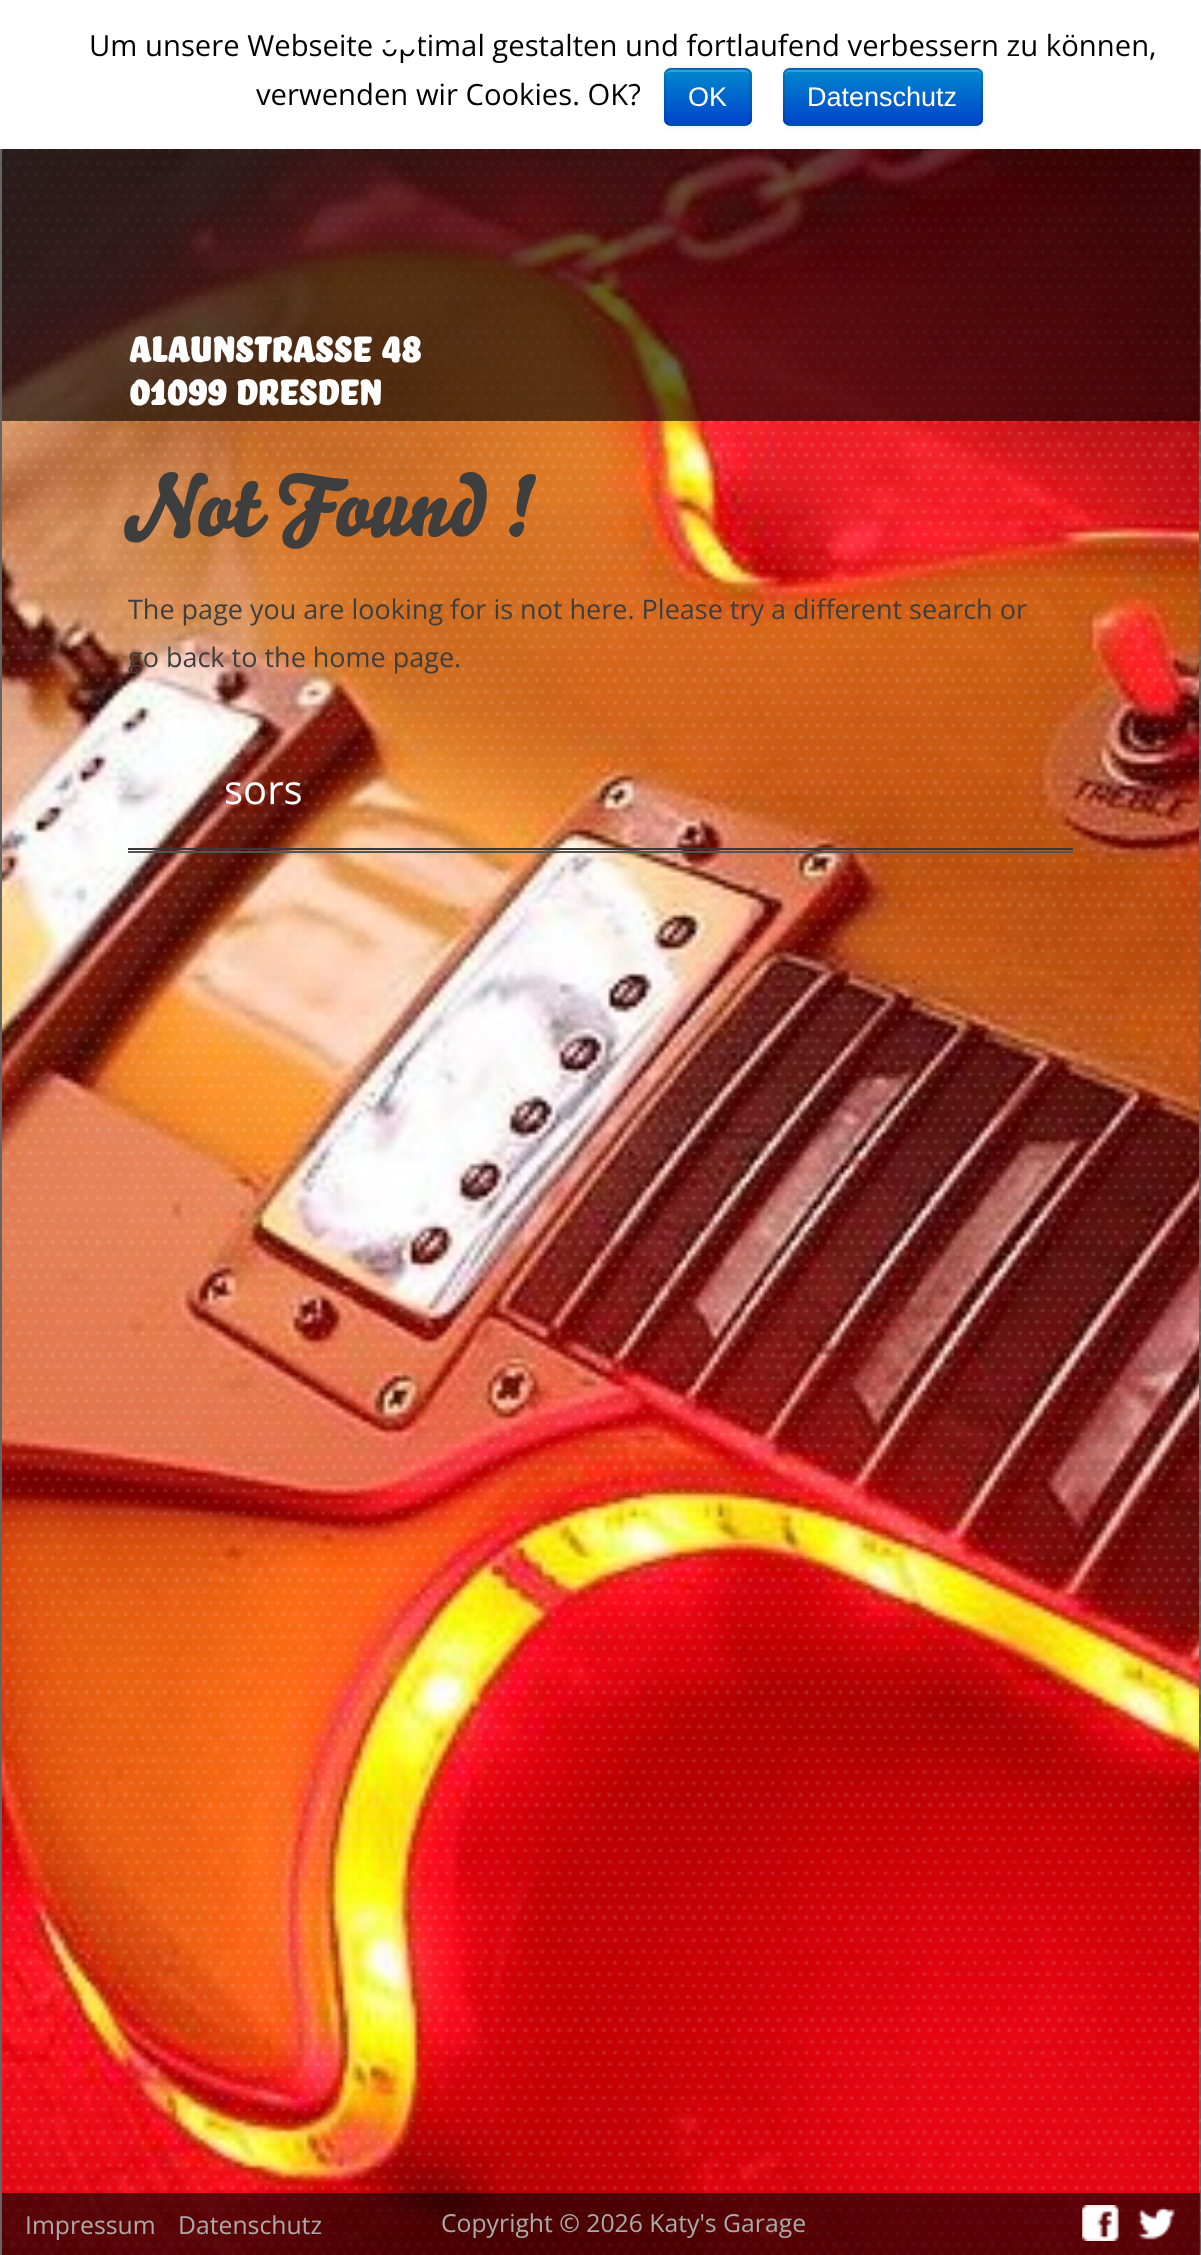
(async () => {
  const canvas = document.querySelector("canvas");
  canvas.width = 1201;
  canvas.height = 2255;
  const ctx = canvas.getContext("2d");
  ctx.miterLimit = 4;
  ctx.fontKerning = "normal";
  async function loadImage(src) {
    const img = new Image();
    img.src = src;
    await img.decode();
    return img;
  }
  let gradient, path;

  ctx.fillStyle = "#ffffff";
  ctx.fillRect(0, 0, 1201, 2255);
  ctx.drawImage(await loadImage("img/1.png"), 2, 149, 1197, 2106);
  ctx.fillStyle = "#646464";
  ctx.fillRect(1199, 149, 2, 2106);
  ctx.fillRect(0, 149, 2, 2106);
  ctx.drawImage(await loadImage("img/5.png"), 2, 149, 1199, 2106);
  ctx.fillStyle = "rgba(0, 0, 0, 0.6)";
  ctx.fillRect(2, 2193, 1198, 62);
  ctx.fillStyle = "rgba(0, 0, 0, 0.05)";
  ctx.filter = "blur(2px)";
  ctx.beginPath();
  ctx.roundRect(664, 70, 88, 58, 7);
  ctx.fill();
  ctx.filter = "none";
  ctx.fillStyle = "#006dcc";
  ctx.beginPath();
  ctx.roundRect(664, 68, 88, 58, 7);
  ctx.fill();
  ctx.save();
  ctx.beginPath();
  ctx.roundRect(664, 68, 88, 58, 7);
  ctx.clip();
  gradient = ctx.createLinearGradient(708, 70, 708, 124);
  gradient.addColorStop(0, "#0088cc");
  gradient.addColorStop(1, "#0044cc");
  ctx.fillStyle = gradient;
  ctx.fillRect(664, 70, 88, 54);
  ctx.restore();
  ctx.fillStyle = "rgba(255, 255, 255, 0.2)";
  path = new Path2D("M670 72H745C747 72 749 74 749 76C749 67 738 70 732 70H683C677 70 666 67 666 76C666 74 668 72 670 72Z");
  ctx.fill(path);
  path = new Path2D("M748.5 123C747.5 124.5 746 125 745 125H670.5C669 125 667.5 124.5 666.5 123");
  ctx.strokeStyle = "rgba(0, 0, 0, 0.25)";
  ctx.lineWidth = 2.2;
  ctx.stroke(path);
  path = new Path2D("M666.5 123C665.5 122 665 120.5 665 119V74C665 73 665.5 71.5 666.5 70.5C667.5 69 669 68.5 670.5 68.5H745C746 68.5 747.5 69 748.5 70.5C750 71.5 750.5 73 750.5 74V119C750.5 120.5 750 122 748.5 123");
  ctx.strokeStyle = "rgba(0, 0, 0, 0.1)";
  ctx.stroke(path);
  ctx.fillStyle = "rgba(0, 0, 0, 0.05)";
  ctx.filter = "blur(2px)";
  ctx.beginPath();
  ctx.roundRect(783, 70, 200, 58, 7);
  ctx.fill();
  ctx.filter = "none";
  ctx.fillStyle = "#006dcc";
  ctx.beginPath();
  ctx.roundRect(783, 68, 200, 58, 7);
  ctx.fill();
  ctx.save();
  ctx.beginPath();
  ctx.roundRect(783, 68, 200, 58, 7);
  ctx.clip();
  gradient = ctx.createLinearGradient(883, 70, 883, 124);
  gradient.addColorStop(0, "#0088cc");
  gradient.addColorStop(1, "#0044cc");
  ctx.fillStyle = gradient;
  ctx.fillRect(783, 70, 200, 54);
  ctx.restore();
  ctx.fillStyle = "rgba(255, 255, 255, 0.2)";
  path = new Path2D("M790 72H976C979 72 981 74 981 76V75C981 72 979 70 976 70H790C787 70 785 72 785 75V76C785 74 787 72 790 72Z");
  ctx.fill(path);
  path = new Path2D("M980.5 123C979.5 124.5 978 125 976.5 125H790C788.5 125 787 124.5 786 123");
  ctx.strokeStyle = "rgba(0, 0, 0, 0.25)";
  ctx.stroke(path);
  path = new Path2D("M786 123C784.5 122 784 120.5 784 119V74C784 73 784.5 71.5 786 70.5C787 69 788.5 68.5 790 68.5H976.5C978 68.5 979.5 69 980.5 70.5C981.5 71.5 982 73 982 74V119C982 120.5 981.5 122 980.5 123");
  ctx.strokeStyle = "rgba(0, 0, 0, 0.1)";
  ctx.stroke(path);
  ctx.drawImage(await loadImage("img/2.png"), 1082, 2205, 37, 36);
  ctx.drawImage(await loadImage("img/3.png"), 1138, 2207, 37, 33);
  for (const [x, y, w, h, color] of [
    [2, 149, 1198, 272, "rgba(0, 0, 0, 0.6)"],
    [128, 848, 945, 2, "#383838"],
    [128, 851, 945, 2, "#545454"],
  ]) {
    ctx.fillStyle = color;
    ctx.fillRect(x, y, w, h);
  }
  ctx.font = "29.25px Open Sans";
  ctx.fillStyle = "#000000";
  ctx.fillText("Um unsere Webseite optimal gestalten und fortlaufend verbessern zu können,", 89, 56);
  ctx.fillText("verwenden wir Cookies. OK?", 256, 105);
  ctx.font = "27px Liberation Sans";
  ctx.fillStyle = "#ffffff";
  ctx.fillText("OK", 688, 106);
  ctx.fillText("Datenschutz", 807, 106);
  ctx.font = "24.75px Open Sans";
  ctx.fillStyle = "#aaaaaa";
  for (const [text, x, y] of [
    ["Impressum", 25, 2234],
    ["Datenschutz", 178, 2234],
    ["Copyright © 2026 Katy's Garage", 441, 2232],
  ]) {
    ctx.fillText(text, x, y);
  }
  ctx.drawImage(await loadImage("img/4.png"), 382, 40, 37, 10);
  ctx.font = "47.25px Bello";
  ctx.fillStyle = "#ffffff";
  ctx.fillText("Alaunstrasse 48", 128, 362);
  ctx.fillText("01099 Dresden", 128, 405);
  ctx.font = "85.5px 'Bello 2'";
  ctx.fillStyle = "#3e3e3e";
  ctx.fillText("Not Found !", 122, 536);
  ctx.font = "27px Open Sans";
  ctx.fillText("The page you are looking for is not here. Please try a different search or", 128, 619);
  ctx.fillText("go back to the home page.", 128, 667);
  ctx.font = "40px Open Sans";
  ctx.fillStyle = "#ffffff";
  ctx.fillText("sors", 224, 804);
})();
